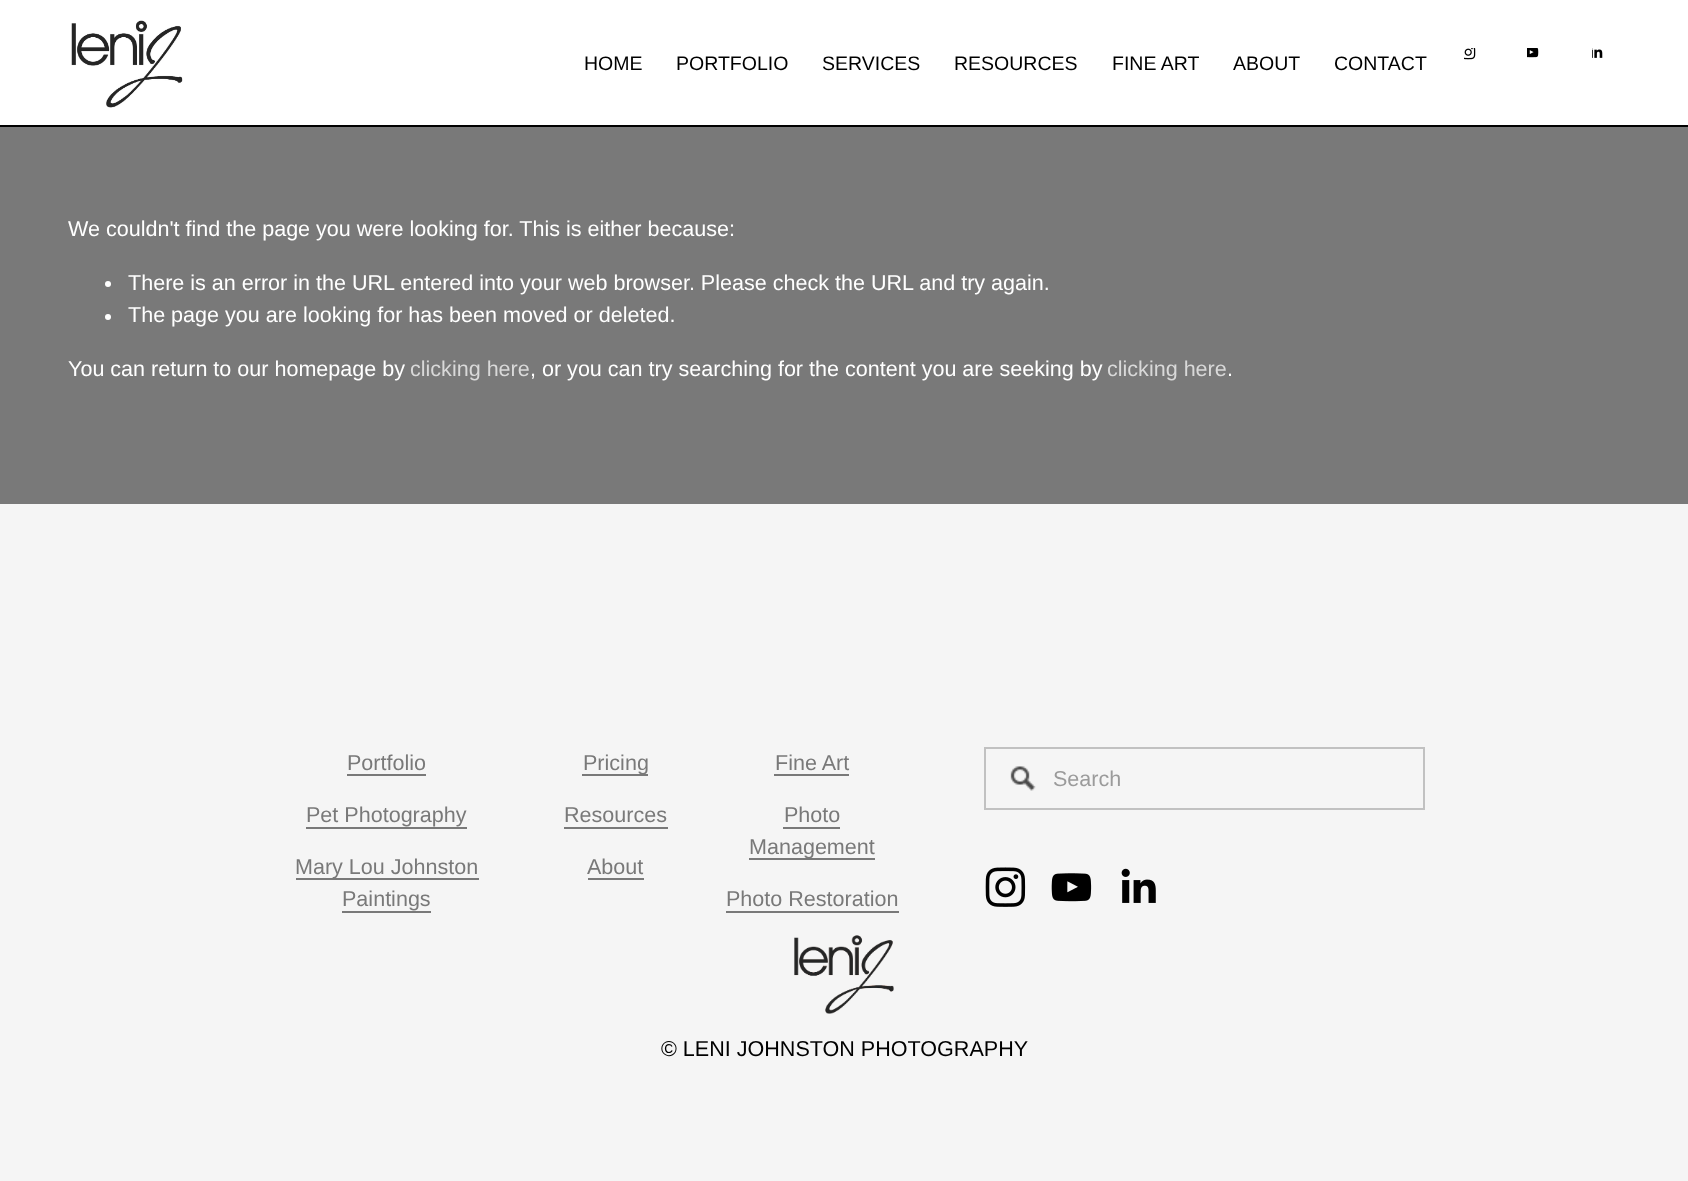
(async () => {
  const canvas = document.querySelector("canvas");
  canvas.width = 1688;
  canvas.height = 1181;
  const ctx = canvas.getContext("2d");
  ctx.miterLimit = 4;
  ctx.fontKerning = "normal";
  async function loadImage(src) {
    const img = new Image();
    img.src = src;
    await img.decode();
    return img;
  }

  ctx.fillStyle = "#797979";
  ctx.fillRect(0, 0, 1688, 1181);
  ctx.fillStyle = "#ffffff";
  ctx.fillRect(0, 0, 1688, 125);
  ctx.drawImage(await loadImage("img/1.png"), 1464, 48, 12, 12);
  ctx.drawImage(await loadImage("img/2.png"), 1527, 48, 12, 10);
  ctx.drawImage(await loadImage("img/3.png"), 1592, 48, 11, 10);
  ctx.drawImage(await loadImage("img/4.png"), 71, 20, 112, 88);
  ctx.fillStyle = "#000000";
  ctx.fillRect(0, 125, 1688, 2);
  ctx.fillStyle = "#ffffff";
  ctx.beginPath();
  ctx.arc(108, 284, 3, 0, Math.PI * 2);
  ctx.fill();
  ctx.beginPath();
  ctx.arc(108, 317, 3, 0, Math.PI * 2);
  ctx.fill();
  for (const [x, y, w, h, color] of [
    [0, 504, 1688, 677, "#f5f5f5"],
    [347, 774, 79, 2, "#797979"],
    [306, 827, 161, 2, "#797979"],
    [296, 878, 183, 2, "#797979"],
    [342, 911, 89, 2, "#797979"],
    [582, 774, 66, 2, "#797979"],
    [564, 827, 104, 2, "#797979"],
    [588, 878, 56, 2, "#797979"],
    [774, 774, 75, 2, "#797979"],
    [783, 827, 57, 2, "#797979"],
    [749, 858, 126, 2, "#797979"],
    [726, 911, 173, 2, "#797979"],
  ]) {
    ctx.fillStyle = color;
    ctx.fillRect(x, y, w, h);
  }
  ctx.drawImage(await loadImage("img/5.png"), 1010, 766, 26, 25);
  ctx.strokeStyle = "#c1c1c1";
  ctx.lineWidth = 2;
  ctx.strokeRect(985, 748, 439, 61);
  ctx.drawImage(await loadImage("img/6.png"), 985, 867, 41, 40);
  ctx.drawImage(await loadImage("img/7.png"), 1051, 873, 41, 29);
  ctx.drawImage(await loadImage("img/8.png"), 1121, 868, 35, 35);
  ctx.drawImage(await loadImage("img/9.png"), 794, 935, 100, 79);
  ctx.font = "19.5px Liberation Sans";
  ctx.fillStyle = "#000000";
  for (const [text, x, y] of [
    ["HOME", 584, 70],
    ["PORTFOLIO", 676, 70],
    ["SERVICES", 822, 70],
    ["RESOURCES", 954, 70],
    ["FINE ART", 1112, 70],
    ["ABOUT", 1233, 70],
    ["CONTACT", 1334, 70],
  ]) {
    ctx.fillText(text, x, y);
  }
  ctx.font = "21.55px Liberation Sans";
  ctx.fillStyle = "#ffffff";
  for (const [text, x, y] of [
    ["We couldn't find the page you were looking for. This is either because:", 68, 236],
    ["There is an error in the URL entered into your web browser. Please check the URL and try again.", 128, 290],
    ["The page you are looking for has been moved or deleted.", 128, 322],
    ["You can return to our homepage by", 68, 376],
  ]) {
    ctx.fillText(text, x, y);
  }
  ctx.fillStyle = "#d9d9d9";
  ctx.fillText("clicking here", 410, 376);
  ctx.fillStyle = "#ffffff";
  ctx.fillText(", or you can try searching for the content you are seeking by", 530, 376);
  ctx.fillStyle = "#d9d9d9";
  ctx.fillText("clicking here", 1107, 376);
  ctx.fillStyle = "#ffffff";
  ctx.fillText(".", 1227, 376);
  ctx.fillStyle = "#797979";
  for (const [text, x, y] of [
    ["Portfolio", 347, 770],
    ["Pet Photography", 306, 822],
    ["Mary Lou Johnston", 295, 874],
    ["Paintings", 342, 906],
    ["Pricing", 583, 770],
    ["Resources", 564, 822],
    ["About", 587, 874],
    ["Fine Art", 775, 770],
    ["Photo", 784, 822],
    ["Management", 749, 854],
    ["Photo Restoration", 726, 906],
  ]) {
    ctx.fillText(text, x, y);
  }
  ctx.fillStyle = "#9b9b9b";
  ctx.fillText("Search", 1053, 786);
  ctx.fillStyle = "#000000";
  ctx.fillText("© LENI JOHNSTON PHOTOGRAPHY", 661, 1056);
})();
